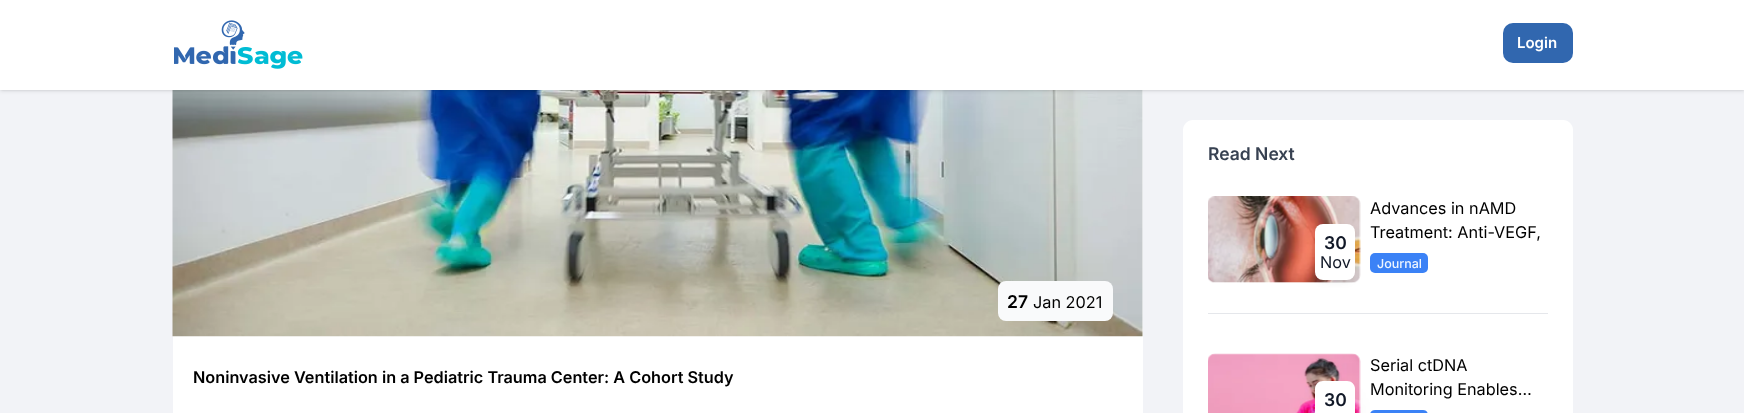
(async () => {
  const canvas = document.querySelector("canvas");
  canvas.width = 1744;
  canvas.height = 413;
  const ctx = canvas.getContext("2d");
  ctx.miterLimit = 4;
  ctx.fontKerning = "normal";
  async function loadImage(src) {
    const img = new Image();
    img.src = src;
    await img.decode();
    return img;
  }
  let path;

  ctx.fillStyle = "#f2f3f7";
  ctx.fillRect(0, 0, 1744, 413);
  ctx.fillStyle = "#ffffff";
  ctx.fillRect(173, 90, 970, 323);
  ctx.drawImage(await loadImage("img/2.png"), 172, 90, 971, 247);
  ctx.fillStyle = "rgba(0, 0, 0, 0.1)";
  ctx.filter = "blur(1px)";
  ctx.beginPath();
  ctx.rect(1, 3, 1743, 87);
  ctx.fill();
  ctx.filter = "none";
  ctx.filter = "blur(2px)";
  ctx.beginPath();
  ctx.rect(0, 1, 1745, 90);
  ctx.fill();
  ctx.filter = "none";
  ctx.fillStyle = "#ffffff";
  ctx.fillRect(0, 0, 1744, 90);
  ctx.drawImage(await loadImage("img/1.png"), 174, 20, 129, 49);
  ctx.fillStyle = "#3167af";
  ctx.beginPath();
  ctx.roundRect(1503, 23, 70, 40, 10);
  ctx.fill();
  ctx.fillStyle = "#f9fafb";
  ctx.beginPath();
  ctx.roundRect(998, 281, 115, 40, 8);
  ctx.fill();
  ctx.fillStyle = "#ffffff";
  path = new Path2D("M1193 120H1563C1568.5 120 1573 124.5 1573 130V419H1183V130C1183 124.5 1187.5 120 1193 120Z");
  ctx.fill(path);
  ctx.fillStyle = "#e5e7eb";
  ctx.fillRect(1208, 313, 340, 1);
  ctx.drawImage(await loadImage("img/3.png"), 1208, 196, 153, 87);
  ctx.fillStyle = "rgba(0, 0, 0, 0.1)";
  ctx.filter = "blur(4px)";
  ctx.beginPath();
  ctx.roundRect(1320, 234, 30, 46, 2.5);
  ctx.fill();
  ctx.filter = "none";
  ctx.fillStyle = "#3b82f6";
  ctx.beginPath();
  ctx.roundRect(1370, 253, 58, 20, 5);
  ctx.fill();
  ctx.save();
  ctx.beginPath();
  ctx.roundRect(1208, 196, 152, 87, 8);
  ctx.clip();
  ctx.fillStyle = "rgba(0, 0, 0, 0.1)";
  ctx.filter = "blur(9.5px)";
  ctx.beginPath();
  ctx.roundRect(1319, 240, 32, 49, 4);
  ctx.fill();
  ctx.filter = "none";
  ctx.restore();
  ctx.fillStyle = "#ffffff";
  ctx.beginPath();
  ctx.roundRect(1315, 224, 40, 56, 8);
  ctx.fill();
  ctx.drawImage(await loadImage("img/4.png"), 1208, 353, 153, 60);
  ctx.fillStyle = "#3b82f6";
  path = new Path2D("M1375 410H1423C1426 410 1428 412 1428 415V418H1370V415C1370 412 1372 410 1375 410Z");
  ctx.fill(path);
  ctx.fillStyle = "rgba(0, 0, 0, 0.1)";
  ctx.filter = "blur(9.5px)";
  ctx.beginPath();
  ctx.roundRect(1319, 398, 32, 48, 4);
  ctx.fill();
  ctx.filter = "none";
  ctx.fillStyle = "#ffffff";
  path = new Path2D("M1323 381H1347C1351.5 381 1355 384.5 1355 389V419H1315V389C1315 384.5 1318.5 381 1323 381Z");
  ctx.fill(path);
  ctx.font = "600 15px Inter";
  ctx.fillText("Login", 1517, 48);
  ctx.font = "600 17.5px Inter";
  ctx.fillStyle = "#000000";
  ctx.fillText("27", 1007, 308);
  ctx.font = "16.25px Inter";
  ctx.fillText("Jan 2021", 1033, 308);
  ctx.font = "600 16.25px Inter";
  ctx.fillText("Noninvasive Ventilation in a Pediatric Trauma Center: A Cohort Study", 193, 383);
  ctx.font = "600 17.5px Inter";
  ctx.fillStyle = "#374151";
  ctx.fillText("Read Next", 1208, 160);
  ctx.fillStyle = "#111827";
  ctx.fillText("30", 1324, 249);
  ctx.font = "16.25px Inter";
  ctx.fillText("Nov", 1320, 268);
  ctx.fillStyle = "#000000";
  ctx.fillText("Advances in nAMD", 1370, 214);
  ctx.fillText("Treatment: Anti-VEGF,", 1370, 238);
  ctx.font = "500 12.5px Inter";
  ctx.fillStyle = "#eff6ff";
  ctx.fillText("Journal", 1377, 268);
  ctx.font = "600 17.5px Inter";
  ctx.fillStyle = "#111827";
  ctx.fillText("30", 1324, 406);
  ctx.font = "16.25px Inter";
  ctx.fillStyle = "#000000";
  ctx.fillText("Serial ctDNA", 1370, 371);
  ctx.fillText("Monitoring Enables…", 1370, 395);
})();
